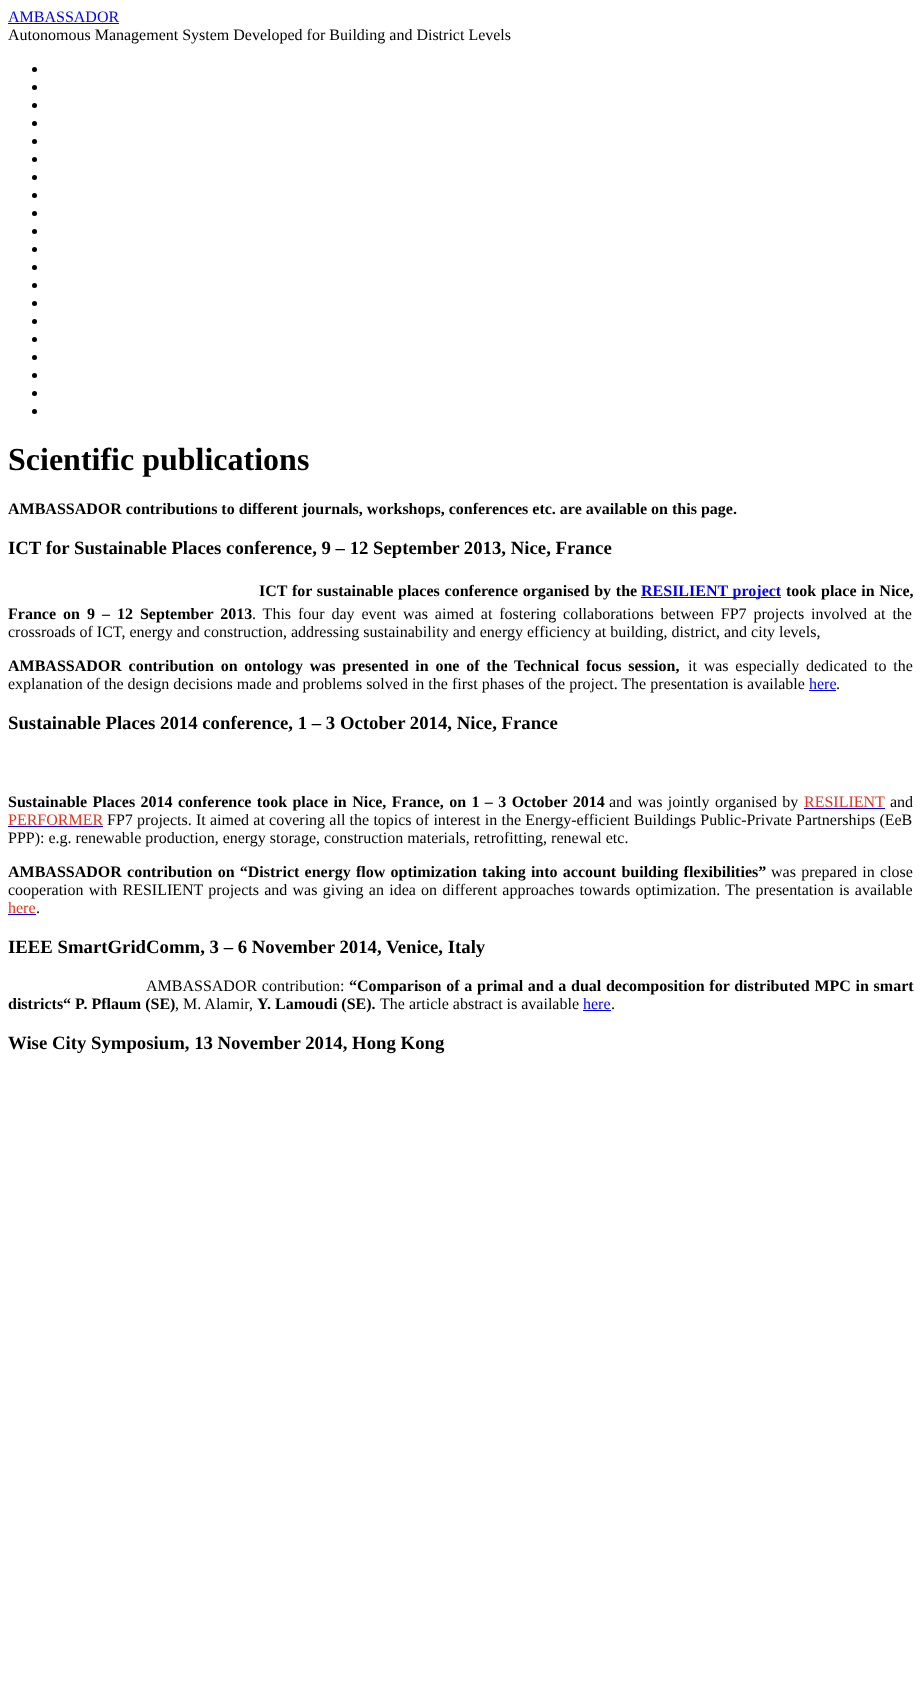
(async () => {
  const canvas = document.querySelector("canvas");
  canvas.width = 921;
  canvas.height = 1684;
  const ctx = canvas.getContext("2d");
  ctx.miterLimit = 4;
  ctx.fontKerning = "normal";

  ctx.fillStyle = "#ffffff";
  ctx.fillRect(0, 0, 921, 1684);
  ctx.fillStyle = "#0000ee";
  ctx.fillRect(8, 23, 111, 1);
  ctx.fillStyle = "#000000";
  ctx.beginPath();
  ctx.arc(34.5, 69.5, 2.5, 0, Math.PI * 2);
  ctx.fill();
  ctx.beginPath();
  ctx.arc(34.5, 87.5, 2.5, 0, Math.PI * 2);
  ctx.fill();
  ctx.beginPath();
  ctx.arc(34.5, 105.5, 2.5, 0, Math.PI * 2);
  ctx.fill();
  ctx.beginPath();
  ctx.arc(34.5, 123.5, 2.5, 0, Math.PI * 2);
  ctx.fill();
  ctx.beginPath();
  ctx.arc(34.5, 141.5, 2.5, 0, Math.PI * 2);
  ctx.fill();
  ctx.beginPath();
  ctx.arc(34.5, 159.5, 2.5, 0, Math.PI * 2);
  ctx.fill();
  ctx.beginPath();
  ctx.arc(34.5, 177.5, 2.5, 0, Math.PI * 2);
  ctx.fill();
  ctx.beginPath();
  ctx.arc(34.5, 195.5, 2.5, 0, Math.PI * 2);
  ctx.fill();
  ctx.beginPath();
  ctx.arc(34.5, 213.5, 2.5, 0, Math.PI * 2);
  ctx.fill();
  ctx.beginPath();
  ctx.arc(34.5, 231.5, 2.5, 0, Math.PI * 2);
  ctx.fill();
  ctx.beginPath();
  ctx.arc(34.5, 249.5, 2.5, 0, Math.PI * 2);
  ctx.fill();
  ctx.beginPath();
  ctx.arc(34.5, 267.5, 2.5, 0, Math.PI * 2);
  ctx.fill();
  ctx.beginPath();
  ctx.arc(34.5, 285.5, 2.5, 0, Math.PI * 2);
  ctx.fill();
  ctx.beginPath();
  ctx.arc(34.5, 303.5, 2.5, 0, Math.PI * 2);
  ctx.fill();
  ctx.beginPath();
  ctx.arc(34.5, 321.5, 2.5, 0, Math.PI * 2);
  ctx.fill();
  ctx.beginPath();
  ctx.arc(34.5, 339.5, 2.5, 0, Math.PI * 2);
  ctx.fill();
  ctx.beginPath();
  ctx.arc(34.5, 357.5, 2.5, 0, Math.PI * 2);
  ctx.fill();
  ctx.beginPath();
  ctx.arc(34.5, 375.5, 2.5, 0, Math.PI * 2);
  ctx.fill();
  ctx.beginPath();
  ctx.arc(34.5, 393.5, 2.5, 0, Math.PI * 2);
  ctx.fill();
  ctx.beginPath();
  ctx.arc(34.5, 411.5, 2.5, 0, Math.PI * 2);
  ctx.fill();
  for (const [x, y, w, h, color] of [
    [641, 597, 140, 1, "#0000ee"],
    [809, 690, 27, 1, "#0000ee"],
    [804, 808, 81, 1, "#0000ee"],
    [8, 826, 95, 1, "#0000ee"],
    [8, 914, 28, 1, "#0000ee"],
    [583, 1010, 28, 1, "#0000ee"],
  ]) {
    ctx.fillStyle = color;
    ctx.fillRect(x, y, w, h);
  }
  ctx.font = "16px Liberation Serif";
  ctx.fillText("AMBASSADOR", 8, 22);
  ctx.fillStyle = "#000000";
  ctx.fillText("Autonomous Management System Developed for Building and District Levels", 8, 40);
  ctx.font = "bold 32px Liberation Serif";
  ctx.fillText("Scientific publications", 8, 470);
  ctx.font = "bold 16px Liberation Serif";
  ctx.fillText("AMBASSADOR contributions to different journals, workshops, conferences etc. are available on this page.", 8, 514);
  ctx.font = "bold 18.75px Liberation Serif";
  ctx.fillText("ICT for Sustainable Places conference, 9 – 12 September 2013, Nice, France", 8, 554);
  ctx.wordSpacing = "0.75px";
  ctx.font = "bold 16px Liberation Serif";
  ctx.fillText("ICT for sustainable places conference organised by the", 259, 596);
  ctx.fillStyle = "#0000ee";
  ctx.fillText("RESILIENT project", 641, 596);
  ctx.fillStyle = "#000000";
  ctx.fillText("took place in Nice,", 786, 596);
  ctx.wordSpacing = "3px";
  ctx.fillText("France on 9 – 12 September 2013", 8, 619);
  ctx.wordSpacing = "2.9px";
  ctx.font = "16px Liberation Serif";
  ctx.fillText(". This four day event was aimed at fostering collaborations between FP7 projects involved at the", 252, 619);
  ctx.wordSpacing = "0px";
  ctx.fillText("crossroads of ICT, energy and construction, addressing sustainability and energy efficiency at building, district, and city levels,", 8, 637);
  ctx.wordSpacing = "2.75px";
  ctx.font = "bold 16px Liberation Serif";
  ctx.fillText("AMBASSADOR contribution on ontology was presented in one of the Technical focus session,", 8, 671);
  ctx.font = "16px Liberation Serif";
  ctx.fillText("it was especially dedicated to the", 688, 671);
  ctx.wordSpacing = "0px";
  ctx.fillText("explanation of the design decisions made and problems solved in the first phases of the project. The presentation is available", 8, 689);
  ctx.fillStyle = "#0000ee";
  ctx.fillText("here", 809, 689);
  ctx.fillStyle = "#000000";
  ctx.fillText(".", 836, 689);
  ctx.font = "bold 18.75px Liberation Serif";
  ctx.fillText("Sustainable Places 2014 conference, 1 – 3 October 2014, Nice, France", 8, 729);
  ctx.wordSpacing = "1.4px";
  ctx.font = "bold 16px Liberation Serif";
  ctx.fillText("Sustainable Places 2014 conference took place in Nice, France, on 1 – 3 October 2014", 8, 807);
  ctx.font = "16px Liberation Serif";
  ctx.fillText("and was jointly organised by", 609, 807);
  ctx.wordSpacing = "0px";
  ctx.fillStyle = "#e2341d";
  ctx.fillText("RESILIENT", 804, 807);
  ctx.fillStyle = "#000000";
  ctx.fillText("and", 890, 807);
  ctx.fillStyle = "#e2341d";
  ctx.fillText("PERFORMER", 8, 825);
  ctx.wordSpacing = "0.25px";
  ctx.fillStyle = "#000000";
  ctx.fillText("FP7 projects. It aimed at covering all the topics of interest in the Energy-efficient Buildings Public-Private Partnerships (EeB", 107, 825);
  ctx.wordSpacing = "0px";
  ctx.fillText("PPP): e.g. renewable production, energy storage, construction materials, retrofitting, renewal etc.", 8, 843);
  ctx.wordSpacing = "1.25px";
  ctx.font = "bold 16px Liberation Serif";
  ctx.fillText("AMBASSADOR contribution on “District energy flow optimization taking into account building flexibilities”", 8, 877);
  ctx.font = "16px Liberation Serif";
  ctx.fillText("was prepared in close", 771, 877);
  ctx.fillText("cooperation with RESILIENT projects and was giving an idea on different approaches towards optimization. The presentation is available", 8, 895);
  ctx.wordSpacing = "0px";
  ctx.fillStyle = "#e2341d";
  ctx.fillText("here", 8, 913);
  ctx.fillStyle = "#000000";
  ctx.fillText(".", 36, 913);
  ctx.font = "bold 18.75px Liberation Serif";
  ctx.fillText("IEEE SmartGridComm, 3 – 6 November 2014, Venice, Italy", 8, 953);
  ctx.wordSpacing = "0.7px";
  ctx.font = "16px Liberation Serif";
  ctx.fillText("AMBASSADOR contribution:", 146, 991);
  ctx.font = "bold 16px Liberation Serif";
  ctx.fillText("“Comparison of a primal and a dual decomposition for distributed MPC in smart", 349, 991);
  ctx.wordSpacing = "0px";
  ctx.fillText("districts“ P. Pflaum (SE)", 8, 1009);
  ctx.font = "16px Liberation Serif";
  ctx.fillText(", M. Alamir,", 175, 1009);
  ctx.font = "bold 16px Liberation Serif";
  ctx.fillText("Y. Lamoudi (SE).", 257, 1009);
  ctx.font = "16px Liberation Serif";
  ctx.fillText("The article abstract is available", 380, 1009);
  ctx.fillStyle = "#0000ee";
  ctx.fillText("here", 583, 1009);
  ctx.fillStyle = "#000000";
  ctx.fillText(".", 611, 1009);
  ctx.font = "bold 18.75px Liberation Serif";
  ctx.fillText("Wise City Symposium, 13 November 2014, Hong Kong", 8, 1049);
})();
